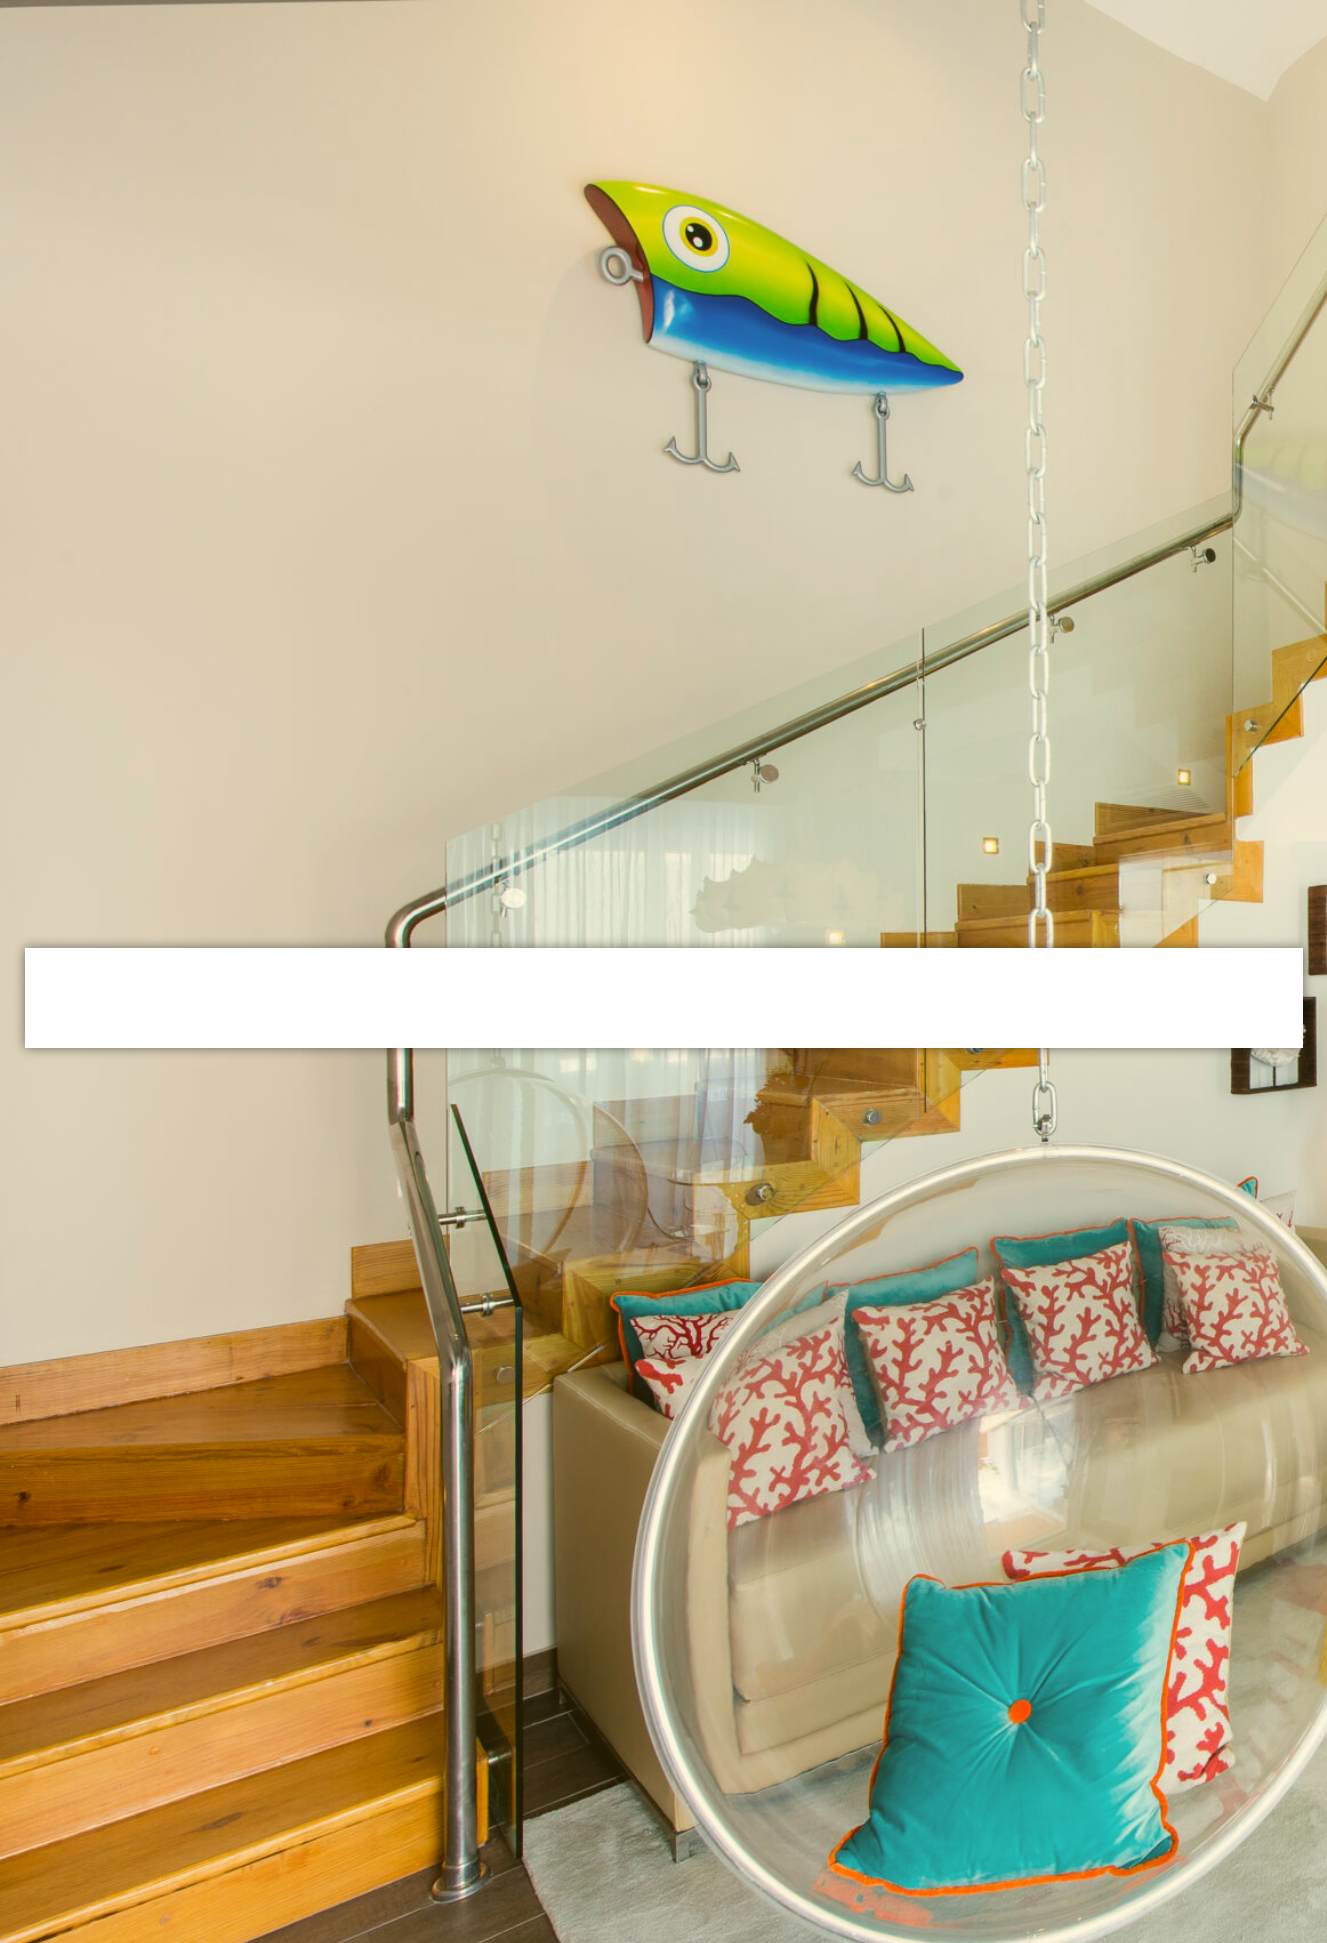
(async () => {
  const canvas = document.querySelector("canvas");
  canvas.width = 1327;
  canvas.height = 1943;
  const ctx = canvas.getContext("2d");
  ctx.miterLimit = 4;
  ctx.fontKerning = "normal";
  async function loadImage(src) {
    const img = new Image();
    img.src = src;
    await img.decode();
    return img;
  }

  ctx.fillStyle = "#ffffff";
  ctx.fillRect(0, 0, 1327, 1943);
  ctx.drawImage(await loadImage("img/1.png"), 0, 0, 1327, 1943);
  ctx.fillStyle = "rgba(0, 0, 0, 0.5)";
  ctx.filter = "blur(6px)";
  ctx.beginPath();
  ctx.rect(25, 948, 1278, 100);
  ctx.fill();
  ctx.filter = "none";
  ctx.fillStyle = "#ffffff";
  ctx.fillRect(25, 948, 1278, 100);
})();
